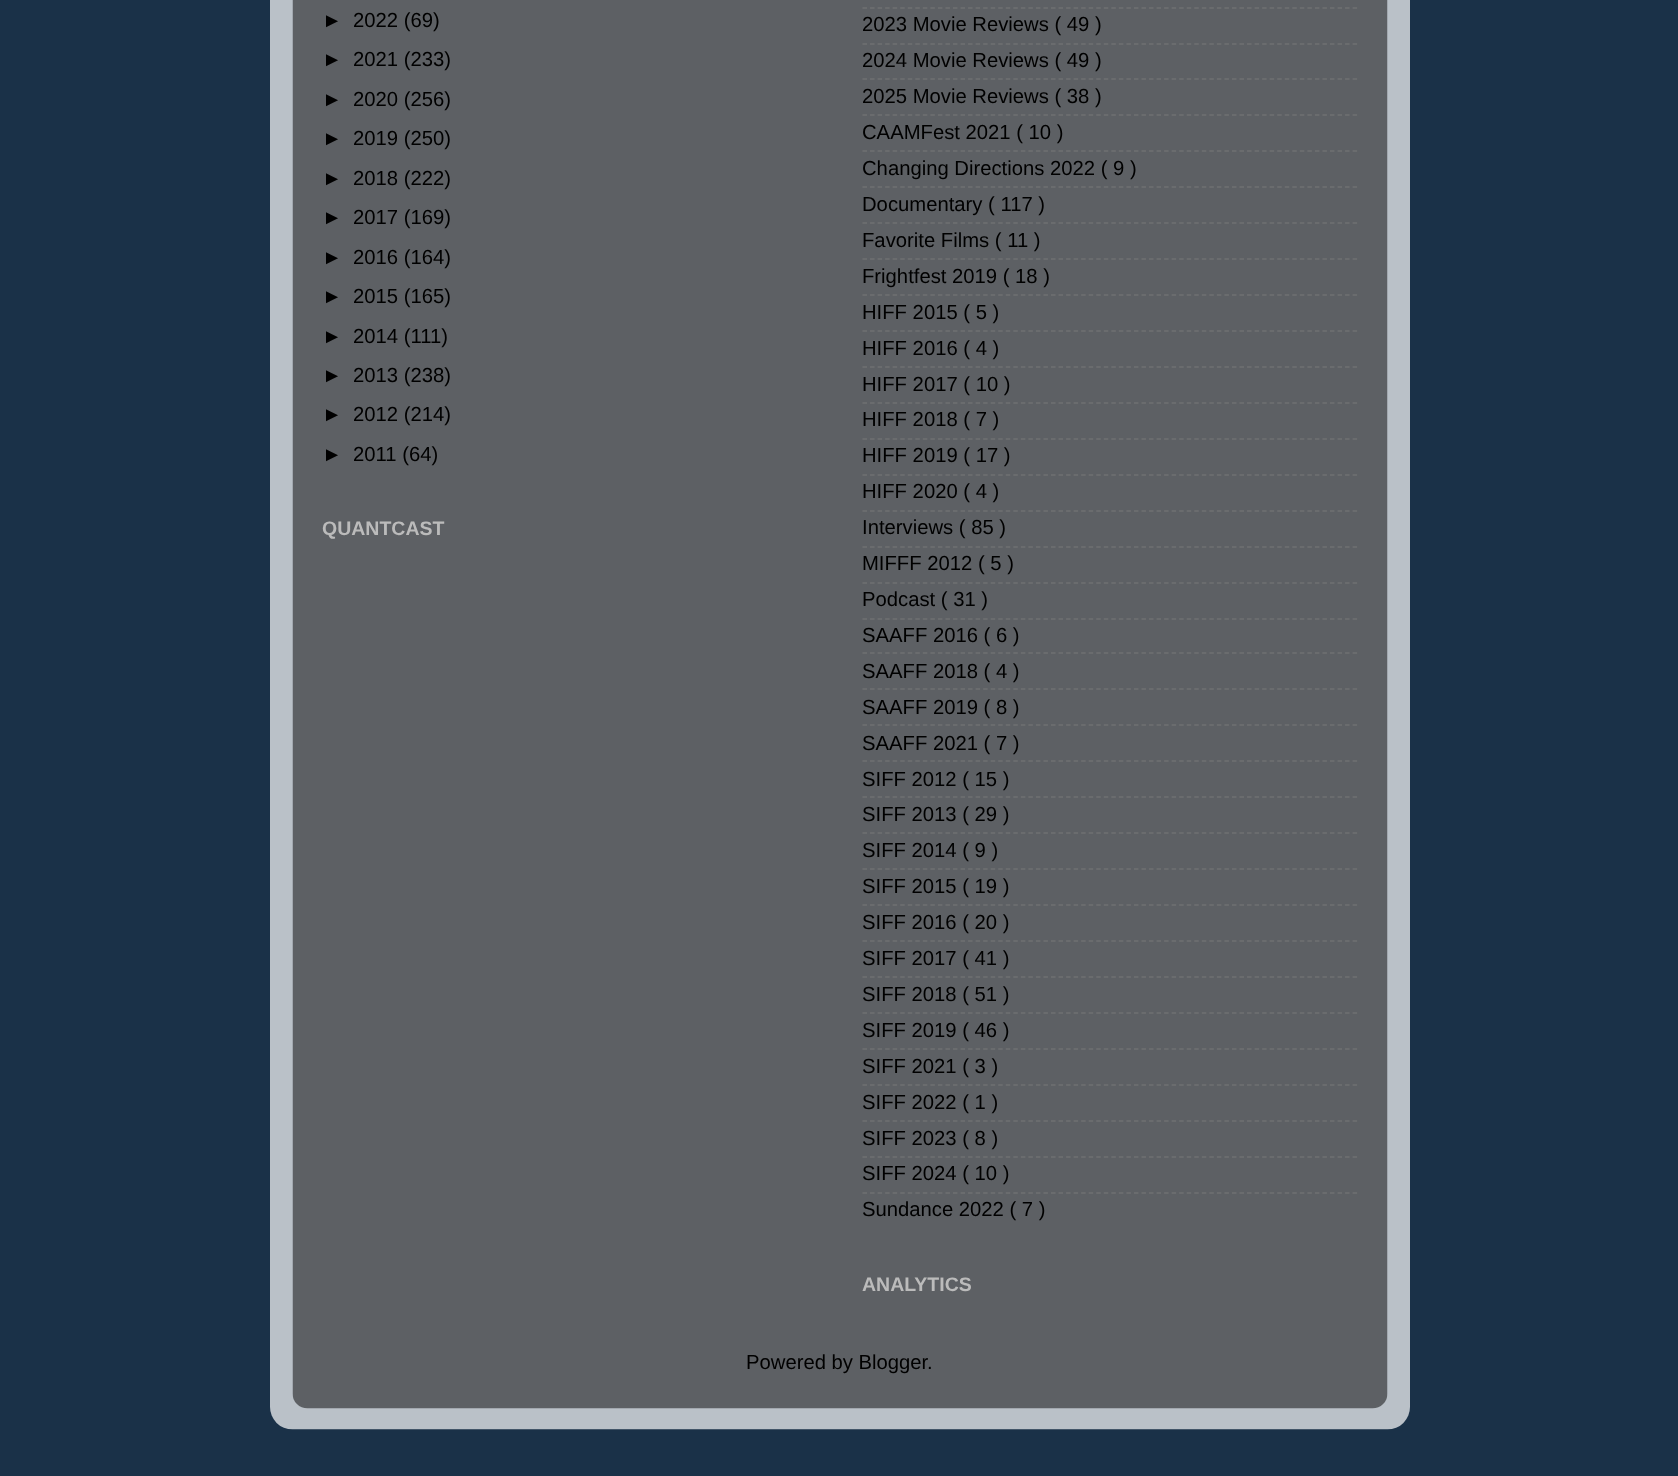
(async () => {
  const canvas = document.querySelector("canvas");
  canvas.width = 1678;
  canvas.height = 1476;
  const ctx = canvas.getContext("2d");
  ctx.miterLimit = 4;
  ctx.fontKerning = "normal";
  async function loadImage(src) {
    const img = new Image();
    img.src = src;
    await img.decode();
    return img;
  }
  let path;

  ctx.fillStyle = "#1a3148";
  ctx.fillRect(0, 0, 1678, 1476);
  ctx.drawImage(await loadImage("img/1.png"), 270, 0, 1140, 1430);
  ctx.drawImage(await loadImage("img/2.png"), 292, 0, 1096, 1409);
  path = new Path2D("M862.5 8H1357.5");
  ctx.strokeStyle = "#6f7072";
  ctx.lineWidth = 1.5;
  ctx.setLineDash([4.5, 3.04]);
  ctx.stroke(path);
  path = new Path2D("M862.5 44H1357.5");
  ctx.stroke(path);
  path = new Path2D("M862.5 79H1357.5");
  ctx.stroke(path);
  path = new Path2D("M862.5 115H1357.5");
  ctx.stroke(path);
  path = new Path2D("M862.5 151H1357.5");
  ctx.stroke(path);
  path = new Path2D("M862.5 187H1357.5");
  ctx.stroke(path);
  path = new Path2D("M862.5 223H1357.5");
  ctx.stroke(path);
  path = new Path2D("M862.5 259H1357.5");
  ctx.stroke(path);
  path = new Path2D("M862.5 295H1357.5");
  ctx.stroke(path);
  path = new Path2D("M862.5 331H1357.5");
  ctx.stroke(path);
  path = new Path2D("M862.5 367H1357.5");
  ctx.stroke(path);
  path = new Path2D("M862.5 403H1357.5");
  ctx.stroke(path);
  path = new Path2D("M862.5 439H1357.5");
  ctx.stroke(path);
  path = new Path2D("M862.5 475H1357.5");
  ctx.stroke(path);
  path = new Path2D("M862.5 511H1357.5");
  ctx.stroke(path);
  path = new Path2D("M862.5 547H1357.5");
  ctx.stroke(path);
  path = new Path2D("M862.5 583H1357.5");
  ctx.stroke(path);
  path = new Path2D("M862.5 619H1357.5");
  ctx.stroke(path);
  path = new Path2D("M862.5 653H1357.5");
  ctx.stroke(path);
  path = new Path2D("M862.5 689H1357.5");
  ctx.stroke(path);
  path = new Path2D("M862.5 725H1357.5");
  ctx.stroke(path);
  path = new Path2D("M862.5 761H1357.5");
  ctx.stroke(path);
  path = new Path2D("M862.5 797H1357.5");
  ctx.stroke(path);
  path = new Path2D("M862.5 833H1357.5");
  ctx.stroke(path);
  path = new Path2D("M862.5 869H1357.5");
  ctx.stroke(path);
  path = new Path2D("M862.5 905H1357.5");
  ctx.stroke(path);
  path = new Path2D("M862.5 941H1357.5");
  ctx.stroke(path);
  path = new Path2D("M862.5 977H1357.5");
  ctx.stroke(path);
  path = new Path2D("M862.5 1013H1357.5");
  ctx.stroke(path);
  path = new Path2D("M862.5 1049H1357.5");
  ctx.stroke(path);
  path = new Path2D("M862.5 1085H1357.5");
  ctx.stroke(path);
  path = new Path2D("M862.5 1121H1357.5");
  ctx.stroke(path);
  path = new Path2D("M862.5 1157H1357.5");
  ctx.stroke(path);
  path = new Path2D("M862.5 1193H1357.5");
  ctx.stroke(path);
  ctx.font = "20.25px Liberation Sans";
  ctx.fillStyle = "#000000";
  for (const [text, x, y] of [
    ["►", 322, 27],
    ["2022 (69)", 353, 27],
    ["►", 322, 66],
    ["2021 (233)", 353, 66],
    ["►", 322, 106],
    ["2020 (256)", 353, 106],
    ["►", 322, 145],
    ["2019 (250)", 353, 145],
    ["►", 322, 185],
    ["2018 (222)", 353, 185],
    ["►", 322, 224],
    ["2017 (169)", 353, 224],
    ["►", 322, 264],
    ["2016 (164)", 353, 264],
    ["►", 322, 303],
    ["2015 (165)", 353, 303],
    ["►", 322, 343],
    ["2014 (111)", 353, 343],
    ["►", 322, 382],
    ["2013 (238)", 353, 382],
    ["►", 322, 421],
    ["2012 (214)", 353, 421],
    ["►", 322, 461],
    ["2011 (64)", 353, 461],
  ]) {
    ctx.fillText(text, x, y);
  }
  ctx.font = "bold 19.5px Liberation Sans";
  ctx.fillStyle = "#bbbbbb";
  ctx.fillText("QUANTCAST", 322, 535);
  ctx.font = "20.25px Liberation Sans";
  ctx.fillStyle = "#000000";
  for (const [text, x, y] of [
    ["2023 Movie Reviews ( 49 )", 862, 31],
    ["2024 Movie Reviews ( 49 )", 862, 67],
    ["2025 Movie Reviews ( 38 )", 862, 103],
    ["CAAMFest 2021 ( 10 )", 862, 139],
    ["Changing Directions 2022 ( 9 )", 862, 175],
    ["Documentary ( 117 )", 862, 211],
    ["Favorite Films ( 11 )", 862, 247],
    ["Frightfest 2019 ( 18 )", 862, 283],
    ["HIFF 2015 ( 5 )", 862, 319],
    ["HIFF 2016 ( 4 )", 862, 355],
    ["HIFF 2017 ( 10 )", 862, 391],
    ["HIFF 2018 ( 7 )", 862, 426],
    ["HIFF 2019 ( 17 )", 862, 462],
    ["HIFF 2020 ( 4 )", 862, 498],
    ["Interviews ( 85 )", 862, 534],
    ["MIFFF 2012 ( 5 )", 862, 570],
    ["Podcast ( 31 )", 862, 606],
    ["SAAFF 2016 ( 6 )", 862, 642],
    ["SAAFF 2018 ( 4 )", 862, 678],
    ["SAAFF 2019 ( 8 )", 862, 714],
    ["SAAFF 2021 ( 7 )", 862, 750],
    ["SIFF 2012 ( 15 )", 862, 786],
    ["SIFF 2013 ( 29 )", 862, 821],
    ["SIFF 2014 ( 9 )", 862, 857],
    ["SIFF 2015 ( 19 )", 862, 893],
    ["SIFF 2016 ( 20 )", 862, 929],
    ["SIFF 2017 ( 41 )", 862, 965],
    ["SIFF 2018 ( 51 )", 862, 1001],
    ["SIFF 2019 ( 46 )", 862, 1037],
    ["SIFF 2021 ( 3 )", 862, 1073],
    ["SIFF 2022 ( 1 )", 862, 1109],
    ["SIFF 2023 ( 8 )", 862, 1145],
    ["SIFF 2024 ( 10 )", 862, 1180],
    ["Sundance 2022 ( 7 )", 862, 1216],
  ]) {
    ctx.fillText(text, x, y);
  }
  ctx.font = "bold 19.5px Liberation Sans";
  ctx.fillStyle = "#bbbbbb";
  ctx.fillText("ANALYTICS", 862, 1291);
  ctx.font = "20.25px Liberation Sans";
  ctx.fillStyle = "#000000";
  ctx.fillText("Powered by Blogger", 746, 1369);
  ctx.fillText(".", 927, 1369);
})();
